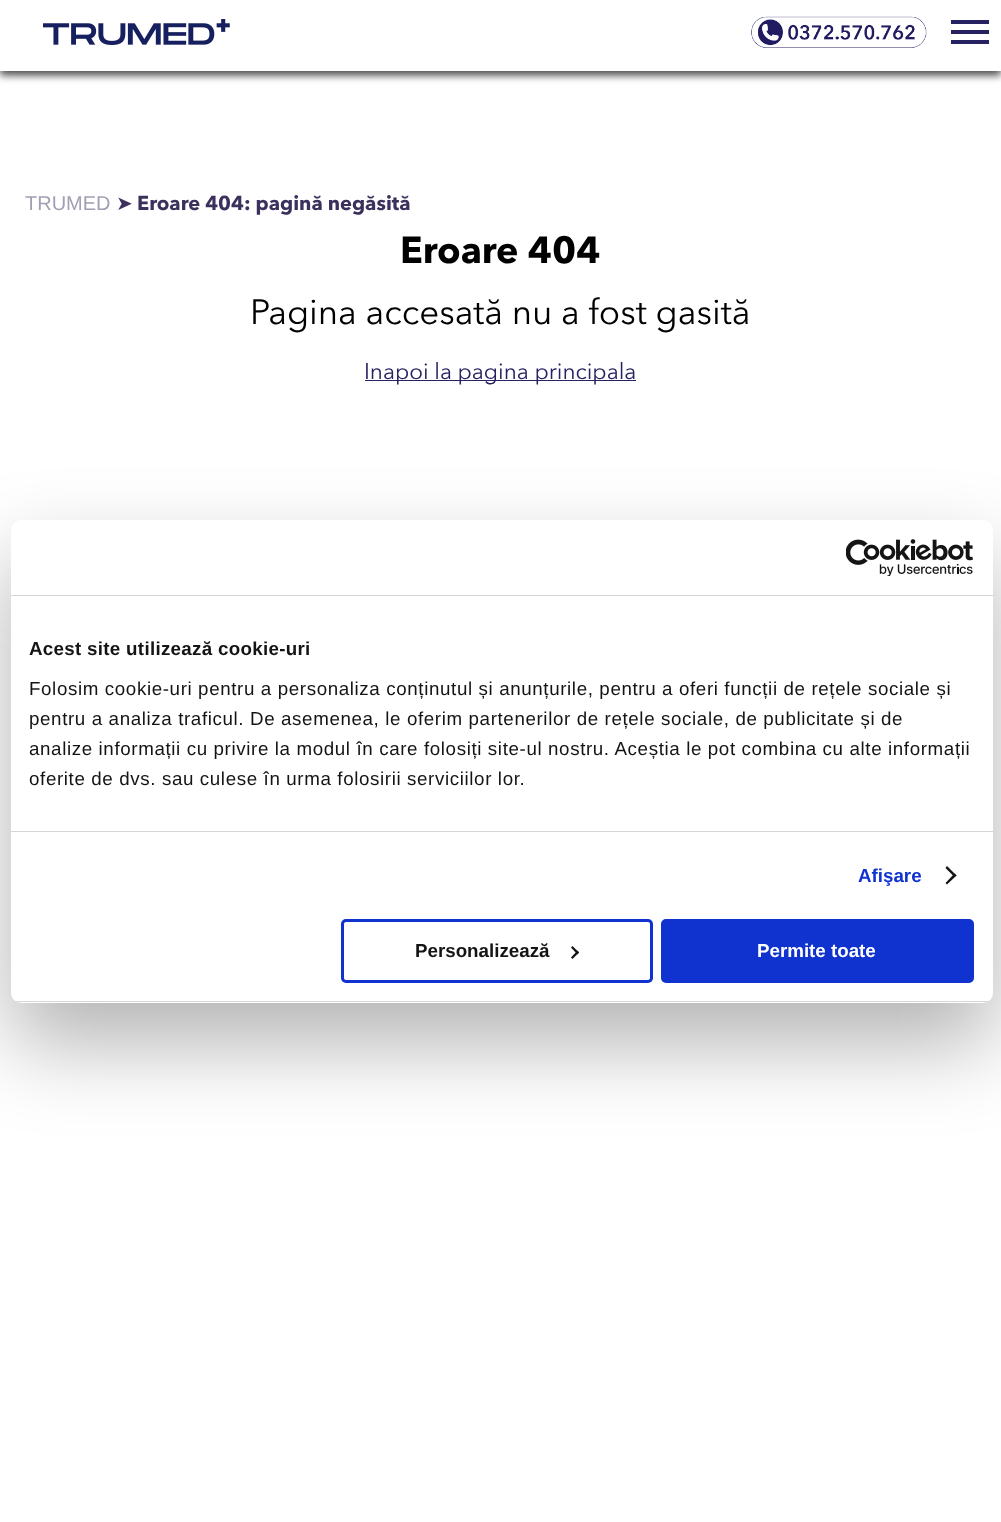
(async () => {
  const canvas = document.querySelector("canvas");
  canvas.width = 1001;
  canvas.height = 1522;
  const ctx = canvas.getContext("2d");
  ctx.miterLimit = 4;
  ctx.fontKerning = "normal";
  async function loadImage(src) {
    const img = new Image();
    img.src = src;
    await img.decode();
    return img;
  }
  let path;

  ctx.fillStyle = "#ffffff";
  ctx.fillRect(0, 0, 1001, 1522);
  ctx.fillStyle = "rgba(0, 0, 0, 0.07)";
  ctx.filter = "blur(2.5px)";
  ctx.beginPath();
  ctx.rect(0, 5, 1001, 71);
  ctx.fill();
  ctx.filter = "none";
  ctx.fillStyle = "rgba(0, 0, 0, 0.7)";
  ctx.filter = "blur(4px)";
  ctx.beginPath();
  ctx.rect(0, 4, 1001, 71);
  ctx.fill();
  ctx.filter = "none";
  ctx.fillStyle = "#ffffff";
  ctx.fillRect(0, 0, 1001, 71);
  ctx.drawImage(await loadImage("img/1.png"), 43, 19, 187, 26);
  ctx.drawImage(await loadImage("img/2.png"), 751, 16, 176, 32);
  for (const [x, y, w, h, color] of [
    [951, 20, 38, 4, "#262261"],
    [951, 30, 38, 4, "#262261"],
    [951, 40, 38, 4, "#262261"],
    [365, 380, 271, 1, "#262261"],
  ]) {
    ctx.fillStyle = color;
    ctx.fillRect(x, y, w, h);
  }
  ctx.fillStyle = "rgba(0, 0, 0, 0.3)";
  ctx.filter = "blur(42.5px)";
  ctx.beginPath();
  ctx.roundRect(11, 560, 982, 483, 10);
  ctx.fill();
  ctx.filter = "none";
  ctx.fillStyle = "#ffffff";
  ctx.beginPath();
  ctx.roundRect(11, 520, 982, 483, 10);
  ctx.fill();
  ctx.fillStyle = "#d6d6d6";
  ctx.fillRect(11, 595, 982, 1);
  ctx.drawImage(await loadImage("img/3.png"), 846, 539, 127, 37);
  ctx.fillRect(11, 831, 982, 1);
  ctx.fillStyle = "#141414";
  path = new Path2D("M947 866L956.5 875.5L954.5 877L945.5 868Z");
  ctx.fill(path);
  path = new Path2D("M954.5 873.5L956.5 875.5L947 884.5L945.5 883Z");
  ctx.fill(path);
  ctx.save();
  ctx.beginPath();
  ctx.roundRect(11, 520, 982, 483, 10);
  ctx.clip();
  ctx.fillStyle = "#d6d6d6";
  ctx.fillRect(11, 1001, 982, 1);
  ctx.restore();
  ctx.beginPath();
  ctx.roundRect(342.5, 920.5, 309, 61, 3.5);
  ctx.strokeStyle = "#1032cf";
  ctx.lineWidth = 3;
  ctx.stroke();
  path = new Path2D("M572.5 946L579 952.5L577.5 954.5L571 947.5Z");
  ctx.fill(path);
  path = new Path2D("M577.5 950.5L579 952.5L572.5 959L571 957.5Z");
  ctx.fill(path);
  ctx.fillStyle = "#1032cf";
  ctx.beginPath();
  ctx.roundRect(662.5, 920.5, 310, 61, 3.5);
  ctx.fill();
  ctx.stroke();
  ctx.font = "20px Liberation Sans";
  ctx.fillStyle = "#a39eb3";
  ctx.fillText("TRUMED", 25, 210);
  ctx.font = "20px DejaVu Sans";
  ctx.fillStyle = "#3c315d";
  ctx.fillText("➤", 116, 210);
  ctx.font = "bold 20px Avenir Next";
  ctx.fillText("Eroare 404: pagină negăsită", 137, 210);
  ctx.font = "bold 37.5px Avenir Next";
  ctx.fillStyle = "#000000";
  ctx.fillText("Eroare 404", 400, 263);
  ctx.font = "35px Avenir Next";
  ctx.fillText("Pagina accesată nu a fost gasită", 250, 324);
  ctx.font = "22.5px Avenir Next";
  ctx.fillStyle = "#262261";
  ctx.fillText("Inapoi la pagina principala", 364, 379);
  ctx.letterSpacing = "0.3px";
  ctx.font = "bold 18.75px Liberation Sans";
  ctx.fillStyle = "#141414";
  ctx.fillText("Acest site utilizează cookie-uri", 29, 655);
  ctx.letterSpacing = "0.62px";
  ctx.font = "18.75px Liberation Sans";
  for (const [text, x, y] of [
    ["Folosim cookie-uri pentru a personaliza conținutul și anunțurile, pentru a oferi funcții de rețele sociale și", 29, 695],
    ["pentru a analiza traficul. De asemenea, le oferim partenerilor de rețele sociale, de publicitate și de", 29, 725],
    ["analize informații cu privire la modul în care folosiți site-ul nostru. Aceștia le pot combina cu alte informații", 29, 755],
    ["oferite de dvs. sau culese în urma folosirii serviciilor lor.", 29, 785],
  ]) {
    ctx.fillText(text, x, y);
  }
  ctx.letterSpacing = "0px";
  ctx.font = "bold 18.75px Liberation Sans";
  ctx.fillStyle = "#1032cf";
  ctx.fillText("Afişare", 858, 882);
  ctx.fillStyle = "#141414";
  ctx.fillText("Personalizează", 415, 957);
  ctx.fillStyle = "#ffffff";
  ctx.fillText("Permite toate", 757, 957);
})();
